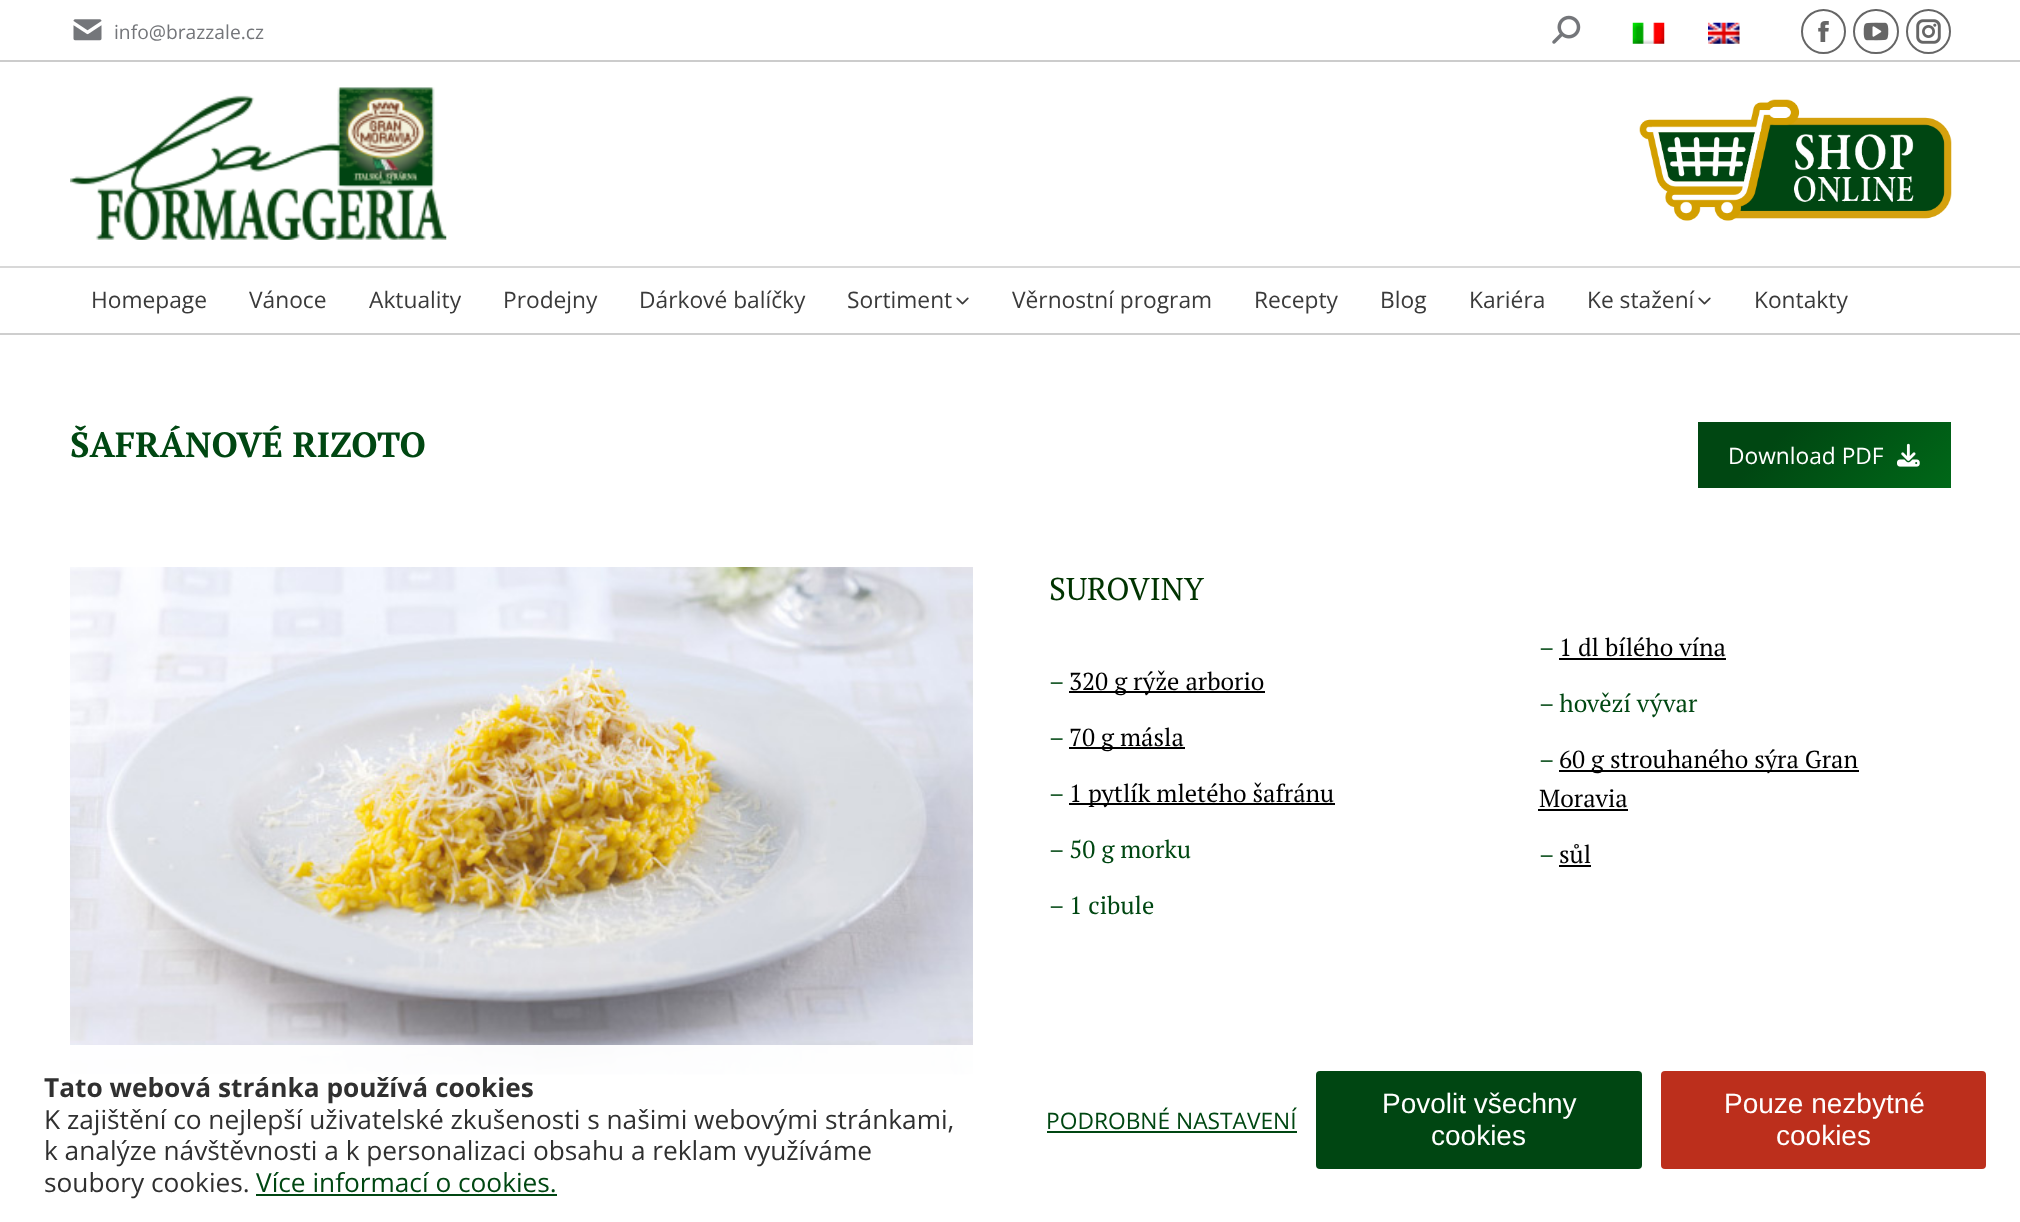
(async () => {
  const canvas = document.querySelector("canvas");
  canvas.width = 2020;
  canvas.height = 1222;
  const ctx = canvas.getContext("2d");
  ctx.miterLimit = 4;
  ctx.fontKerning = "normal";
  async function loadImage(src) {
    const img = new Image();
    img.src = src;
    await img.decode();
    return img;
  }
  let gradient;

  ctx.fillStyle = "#ffffff";
  ctx.fillRect(0, 0, 2020, 1222);
  ctx.fillStyle = "#cecece";
  ctx.fillRect(0, 333, 2020, 2);
  ctx.drawImage(await loadImage("img/1.png"), 73, 19, 29, 22);
  ctx.drawImage(await loadImage("img/2.png"), 1552, 15, 29, 29);
  ctx.drawImage(await loadImage("img/3.png"), 1632, 22, 33, 22);
  ctx.drawImage(await loadImage("img/4.png"), 1708, 22, 32, 22);
  ctx.beginPath();
  ctx.arc(1823.5, 31.5, 21.5, 0, Math.PI * 2);
  ctx.strokeStyle = "#666666";
  ctx.lineWidth = 2;
  ctx.stroke();
  ctx.drawImage(await loadImage("img/5.png"), 1818, 21, 11, 21);
  ctx.beginPath();
  ctx.roundRect(1854, 10, 44, 43, 21.5);
  ctx.stroke();
  ctx.drawImage(await loadImage("img/6.png"), 1863, 22, 26, 19);
  ctx.beginPath();
  ctx.arc(1928.5, 31.5, 21.5, 0, Math.PI * 2);
  ctx.stroke();
  ctx.drawImage(await loadImage("img/7.png"), 1916, 19, 25, 25);
  ctx.fillStyle = "#cccccc";
  ctx.fillRect(0, 60, 2020, 2);
  ctx.drawImage(await loadImage("img/8.png"), 70, 87, 377, 153);
  ctx.drawImage(await loadImage("img/9.png"), 1639, 99, 313, 122);
  ctx.fillStyle = "#d8d8d8";
  ctx.fillRect(0, 266, 2020, 2);
  ctx.drawImage(await loadImage("img/10.png"), 956, 297, 13, 8);
  ctx.drawImage(await loadImage("img/10.png"), 1698, 297, 13, 8);
  gradient = ctx.createLinearGradient(1744, 375, 1904, 535);
  gradient.addColorStop(0.3, "#004712");
  gradient.addColorStop(1, "#006818");
  ctx.fillStyle = gradient;
  ctx.fillRect(1698, 422, 253, 66);
  ctx.drawImage(await loadImage("img/11.png"), 1897, 443, 23, 24);
  ctx.drawImage(await loadImage("img/12.png"), 70, 567, 903, 508);
  for (const [x, y, w, h, color] of [
    [1069, 691, 196, 2, "#000000"],
    [1069, 747, 116, 2, "#000000"],
    [1069, 803, 266, 2, "#000000"],
    [1559, 658, 167, 2, "#000000"],
    [1559, 770, 300, 2, "#000000"],
    [1538, 809, 90, 2, "#000000"],
    [1559, 865, 32, 2, "#000000"],
    [70, 1045, 903, 30, "rgba(255, 255, 255, 0.95)"],
    [256, 1194, 301, 2, "#004612"],
    [1047, 1131, 250, 2, "#004612"],
  ]) {
    ctx.fillStyle = color;
    ctx.fillRect(x, y, w, h);
  }
  ctx.beginPath();
  ctx.roundRect(1316, 1071, 326, 98, 4);
  ctx.fill();
  ctx.fillStyle = "#bc2f1c";
  ctx.beginPath();
  ctx.roundRect(1661, 1071, 325, 98, 4);
  ctx.fill();
  ctx.font = "19.25px Open Sans";
  ctx.fillStyle = "#74767a";
  ctx.fillText("info@brazzale.cz", 114, 39);
  ctx.font = "22.75px Open Sans";
  ctx.fillStyle = "#3a3a3a";
  for (const [text, x, y] of [
    ["Homepage", 91, 308],
    ["Vánoce", 249, 308],
    ["Aktuality", 369, 308],
    ["Prodejny", 503, 308],
    ["Dárkové balíčky", 639, 308],
    ["Sortiment", 847, 308],
    ["Věrnostní program", 1012, 308],
    ["Recepty", 1254, 308],
    ["Blog", 1380, 308],
    ["Kariéra", 1469, 308],
    ["Ke stažení", 1587, 308],
    ["Kontakty", 1754, 308],
  ]) {
    ctx.fillText(text, x, y);
  }
  ctx.font = "bold 35px PT Serif";
  ctx.fillStyle = "#004712";
  ctx.fillText("ŠAFRÁNOVÉ RIZOTO", 70, 457);
  ctx.font = "22.75px Open Sans";
  ctx.fillStyle = "#ffffff";
  ctx.fillText("Download PDF", 1728, 464);
  ctx.font = "31.5px PT Serif";
  ctx.fillStyle = "#003300";
  ctx.fillText("SUROVINY", 1049, 600);
  ctx.font = "24.5px PT Serif";
  ctx.fillStyle = "#004712";
  ctx.fillText("–", 1049, 690);
  ctx.fillStyle = "#000000";
  ctx.fillText("320 g rýže arborio", 1069, 690);
  ctx.fillStyle = "#004712";
  ctx.fillText("–", 1049, 746);
  ctx.fillStyle = "#000000";
  ctx.fillText("70 g másla", 1069, 746);
  ctx.fillStyle = "#004712";
  ctx.fillText("–", 1049, 802);
  ctx.fillStyle = "#000000";
  ctx.fillText("1 pytlík mletého šafránu", 1069, 802);
  ctx.fillStyle = "#004712";
  for (const [text, x, y] of [
    ["– 50 g morku", 1049, 858],
    ["– 1 cibule", 1049, 914],
    ["–", 1539, 656],
  ]) {
    ctx.fillText(text, x, y);
  }
  ctx.fillStyle = "#000000";
  ctx.fillText("1 dl bílého vína", 1559, 656);
  ctx.fillStyle = "#004712";
  ctx.fillText("– hovězí vývar", 1539, 712);
  ctx.fillText("–", 1539, 768);
  ctx.fillStyle = "#000000";
  ctx.fillText("60 g strouhaného sýra Gran", 1559, 768);
  ctx.fillText("Moravia", 1539, 807);
  ctx.fillStyle = "#004712";
  ctx.fillText("–", 1539, 863);
  ctx.fillStyle = "#000000";
  ctx.fillText("sůl", 1559, 863);
  ctx.font = "bold 26.25px Open Sans";
  ctx.fillStyle = "#303030";
  ctx.fillText("Tato webová stránka používá cookies", 44, 1097);
  ctx.font = "26.25px Open Sans";
  for (const [text, x, y] of [
    ["K zajištění co nejlepší uživatelské zkušenosti s našimi webovými stránkami,", 44, 1129],
    ["k analýze návštěvnosti a k personalizaci obsahu a reklam využíváme", 44, 1160],
    ["soubory cookies.", 44, 1192],
  ]) {
    ctx.fillText(text, x, y);
  }
  ctx.fillStyle = "#004712";
  ctx.fillText("Více informací o cookies.", 256, 1192);
  ctx.font = "22.75px Open Sans";
  ctx.fillText("PODROBNÉ NASTAVENÍ", 1046, 1129);
  ctx.font = "28px Liberation Sans";
  ctx.fillStyle = "#ffffff";
  for (const [text, x, y] of [
    ["Povolit všechny", 1382, 1113],
    ["cookies", 1431, 1145],
    ["Pouze nezbytné", 1724, 1113],
    ["cookies", 1776, 1145],
  ]) {
    ctx.fillText(text, x, y);
  }
})();
